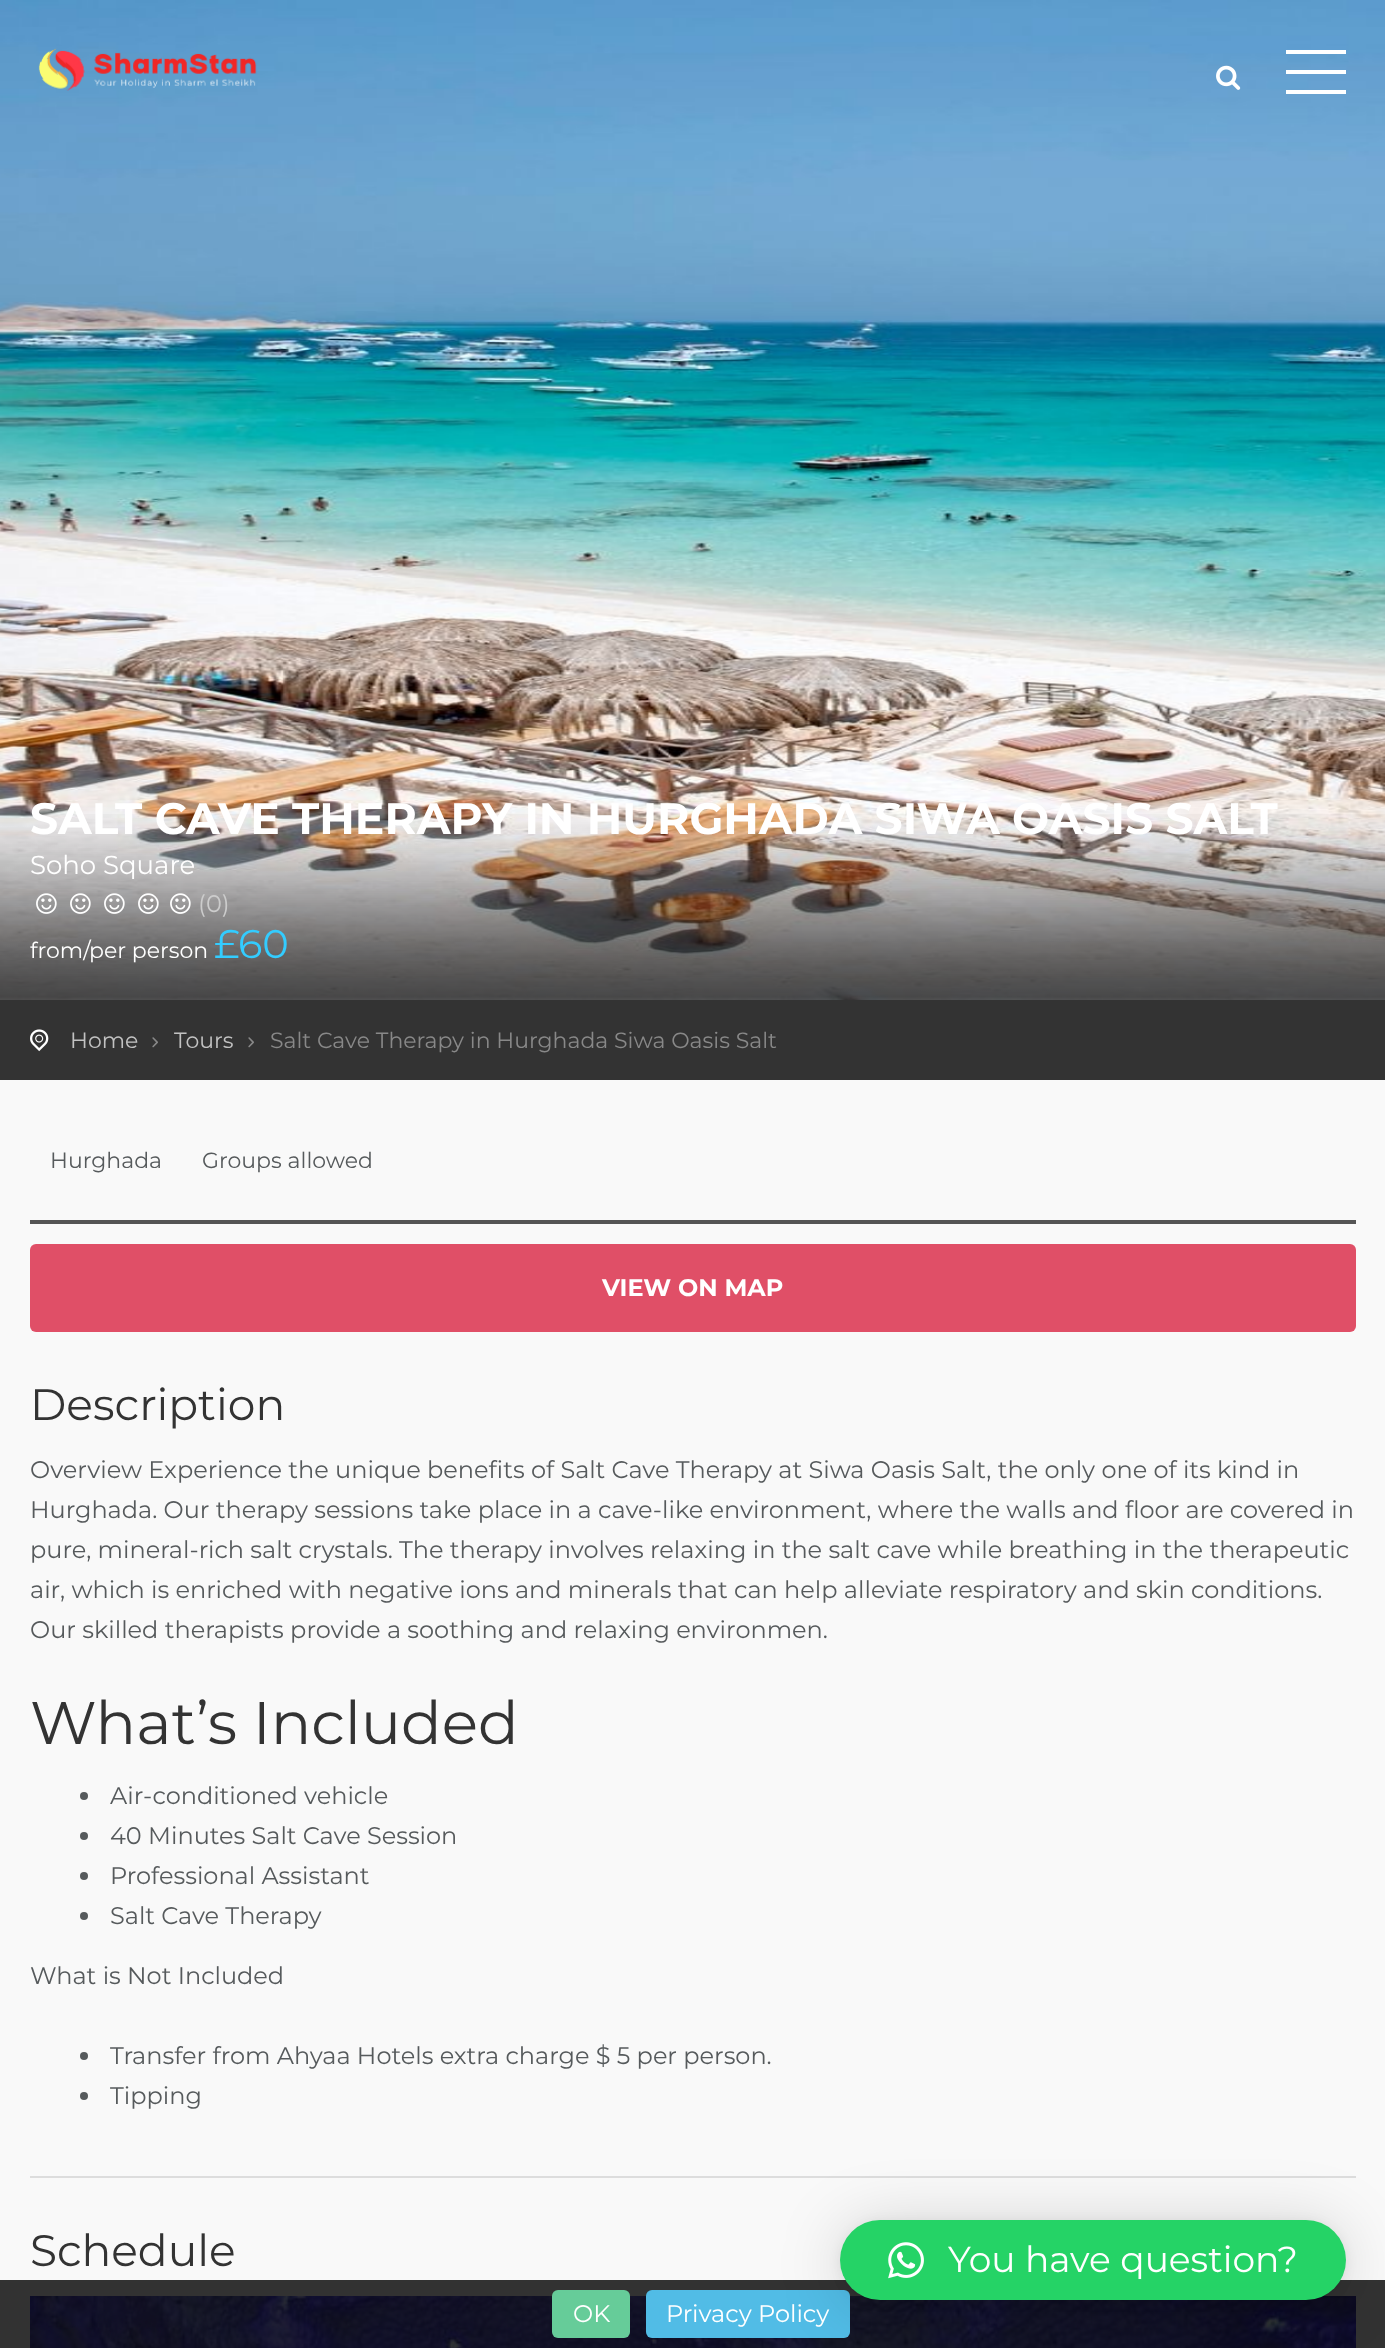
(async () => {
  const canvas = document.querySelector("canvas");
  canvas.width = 1385;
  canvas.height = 2348;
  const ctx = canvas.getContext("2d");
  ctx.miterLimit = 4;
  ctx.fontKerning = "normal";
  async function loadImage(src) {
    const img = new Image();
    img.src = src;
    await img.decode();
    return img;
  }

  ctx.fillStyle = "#f9f9f9";
  ctx.fillRect(0, 0, 1385, 2348);
  ctx.fillStyle = "#323232";
  ctx.fillRect(0, 2280, 1385, 68);
  ctx.drawImage(await loadImage("img/1.png"), 0, 0, 1385, 1000);
  ctx.drawImage(await loadImage("img/2.png"), 38, 48, 219, 43);
  ctx.drawImage(await loadImage("img/3.png"), 1216, 65, 25, 25);
  for (const [x, y, w, h, color] of [
    [1286, 70, 60, 4, "#ffffff"],
    [1286, 50, 60, 4, "#ffffff"],
    [1286, 90, 60, 4, "#ffffff"],
  ]) {
    ctx.fillStyle = color;
    ctx.fillRect(x, y, w, h);
  }
  ctx.drawImage(await loadImage("img/4.png"), 0, 814, 1385, 186);
  ctx.drawImage(await loadImage("img/5.png"), 36, 893, 21, 21);
  ctx.drawImage(await loadImage("img/6.png"), 70, 893, 21, 21);
  ctx.drawImage(await loadImage("img/7.png"), 104, 893, 21, 21);
  ctx.drawImage(await loadImage("img/8.png"), 138, 893, 21, 21);
  ctx.drawImage(await loadImage("img/9.png"), 170, 893, 21, 21);
  ctx.fillStyle = "#333333";
  ctx.fillRect(0, 1000, 1385, 80);
  ctx.drawImage(await loadImage("img/10.png"), 30, 1029, 19, 23);
  ctx.drawImage(await loadImage("img/11.png"), 152, 1037, 6, 11);
  ctx.drawImage(await loadImage("img/11.png"), 248, 1037, 6, 11);
  ctx.fillStyle = "#555555";
  ctx.fillRect(30, 1220, 1326, 4);
  ctx.fillStyle = "#e04f67";
  ctx.beginPath();
  ctx.roundRect(30, 1244, 1326, 88, 6);
  ctx.fill();
  ctx.fillStyle = "#565a5c";
  ctx.beginPath();
  ctx.arc(84, 1796, 4, 0, Math.PI * 2);
  ctx.fill();
  ctx.beginPath();
  ctx.arc(84, 1836, 4, 0, Math.PI * 2);
  ctx.fill();
  ctx.beginPath();
  ctx.arc(84, 1876, 4, 0, Math.PI * 2);
  ctx.fill();
  ctx.beginPath();
  ctx.arc(84, 1916, 4, 0, Math.PI * 2);
  ctx.fill();
  ctx.beginPath();
  ctx.arc(84, 2056, 4, 0, Math.PI * 2);
  ctx.fill();
  ctx.beginPath();
  ctx.arc(84, 2096, 4, 0, Math.PI * 2);
  ctx.fill();
  ctx.fillStyle = "#dddddd";
  ctx.fillRect(30, 2176, 1326, 2);
  ctx.drawImage(await loadImage("img/12.png"), 30, 2296, 1326, 52);
  ctx.fillStyle = "#51bce6";
  ctx.beginPath();
  ctx.roundRect(646, 2290, 204, 48, 6);
  ctx.fill();
  ctx.fillStyle = "rgba(0, 0, 0, 0.16)";
  ctx.filter = "blur(32px)";
  ctx.beginPath();
  ctx.roundRect(840, 2224, 506, 80, 40);
  ctx.fill();
  ctx.filter = "none";
  ctx.fillStyle = "rgba(0, 0, 0, 0.06)";
  ctx.filter = "blur(6px)";
  ctx.beginPath();
  ctx.roundRect(840, 2222, 506, 80, 40);
  ctx.fill();
  ctx.filter = "none";
  ctx.fillStyle = "#25d366";
  ctx.beginPath();
  ctx.roundRect(840, 2220, 506, 80, 40);
  ctx.fill();
  ctx.drawImage(await loadImage("img/13.png"), 888, 2242, 36, 37);
  ctx.fillStyle = "#66cc99";
  ctx.beginPath();
  ctx.roundRect(552, 2290, 78, 48, 6);
  ctx.fill();
  ctx.font = "bold 44px Montserrat";
  ctx.fillStyle = "#ffffff";
  ctx.fillText("SALT CAVE THERAPY IN HURGHADA SIWA OASIS SALT", 30, 834);
  ctx.font = "26px Montserrat";
  ctx.fillText("Soho Square", 30, 874);
  ctx.font = "24px Montserrat";
  ctx.fillStyle = "#cccccc";
  ctx.fillText("(0)", 198, 912);
  ctx.font = "22px Montserrat";
  ctx.fillStyle = "#ffffff";
  ctx.fillText("from/per person", 30, 958);
  ctx.font = "40px Montserrat";
  ctx.fillStyle = "#33ccff";
  ctx.fillText("£", 214, 958);
  ctx.fillText("60", 238, 958);
  ctx.font = "22px Montserrat";
  ctx.fillStyle = "#c2c2c2";
  ctx.fillText("Home", 70, 1048);
  ctx.fillText("Tours", 174, 1048);
  ctx.fillStyle = "#888888";
  ctx.fillText("Salt Cave Therapy in Hurghada Siwa Oasis Salt", 270, 1048);
  ctx.fillStyle = "#565a5c";
  ctx.fillText("Hurghada", 50, 1168);
  ctx.fillText("Groups allowed", 202, 1168);
  ctx.font = "bold 24px Montserrat";
  ctx.fillStyle = "#ffffff";
  ctx.fillText("VIEW ON MAP", 602, 1296);
  ctx.font = "44px Montserrat";
  ctx.fillStyle = "#333333";
  ctx.fillText("Description", 30, 1420);
  ctx.font = "24px Montserrat";
  ctx.fillStyle = "#565a5c";
  for (const [text, x, y] of [
    ["Overview Experience the unique benefits of Salt Cave Therapy at Siwa Oasis Salt, the only one of its kind in", 30, 1478],
    ["Hurghada. Our therapy sessions take place in a cave-like environment, where the walls and floor are covered in", 30, 1518],
    ["pure, mineral-rich salt crystals. The therapy involves relaxing in the salt cave while breathing in the therapeutic", 30, 1558],
    ["air, which is enriched with negative ions and minerals that can help alleviate respiratory and skin conditions.", 30, 1598],
    ["Our skilled therapists provide a soothing and relaxing environmen.", 30, 1638],
  ]) {
    ctx.fillText(text, x, y);
  }
  ctx.font = "60px Montserrat";
  ctx.fillStyle = "#333333";
  ctx.fillText("What’s Included", 30, 1744);
  ctx.font = "24px Montserrat";
  ctx.fillStyle = "#565a5c";
  for (const [text, x, y] of [
    ["Air-conditioned vehicle", 110, 1804],
    ["40 Minutes Salt Cave Session", 110, 1844],
    ["Professional Assistant", 110, 1884],
    ["Salt Cave Therapy", 110, 1924],
    ["What is Not Included", 30, 1984],
    ["Transfer from Ahyaa Hotels extra charge $ 5 per person.", 110, 2064],
    ["Tipping", 110, 2104],
  ]) {
    ctx.fillText(text, x, y);
  }
  ctx.font = "44px Montserrat";
  ctx.fillStyle = "#333333";
  ctx.fillText("Schedule", 30, 2266);
  ctx.font = "36px Montserrat";
  ctx.fillStyle = "#ffffff";
  ctx.fillText("You have question?", 948, 2272);
  ctx.font = "24px Montserrat";
  ctx.fillText("OK", 573, 2322);
  ctx.fillText("Privacy Policy", 666, 2322);
})();
